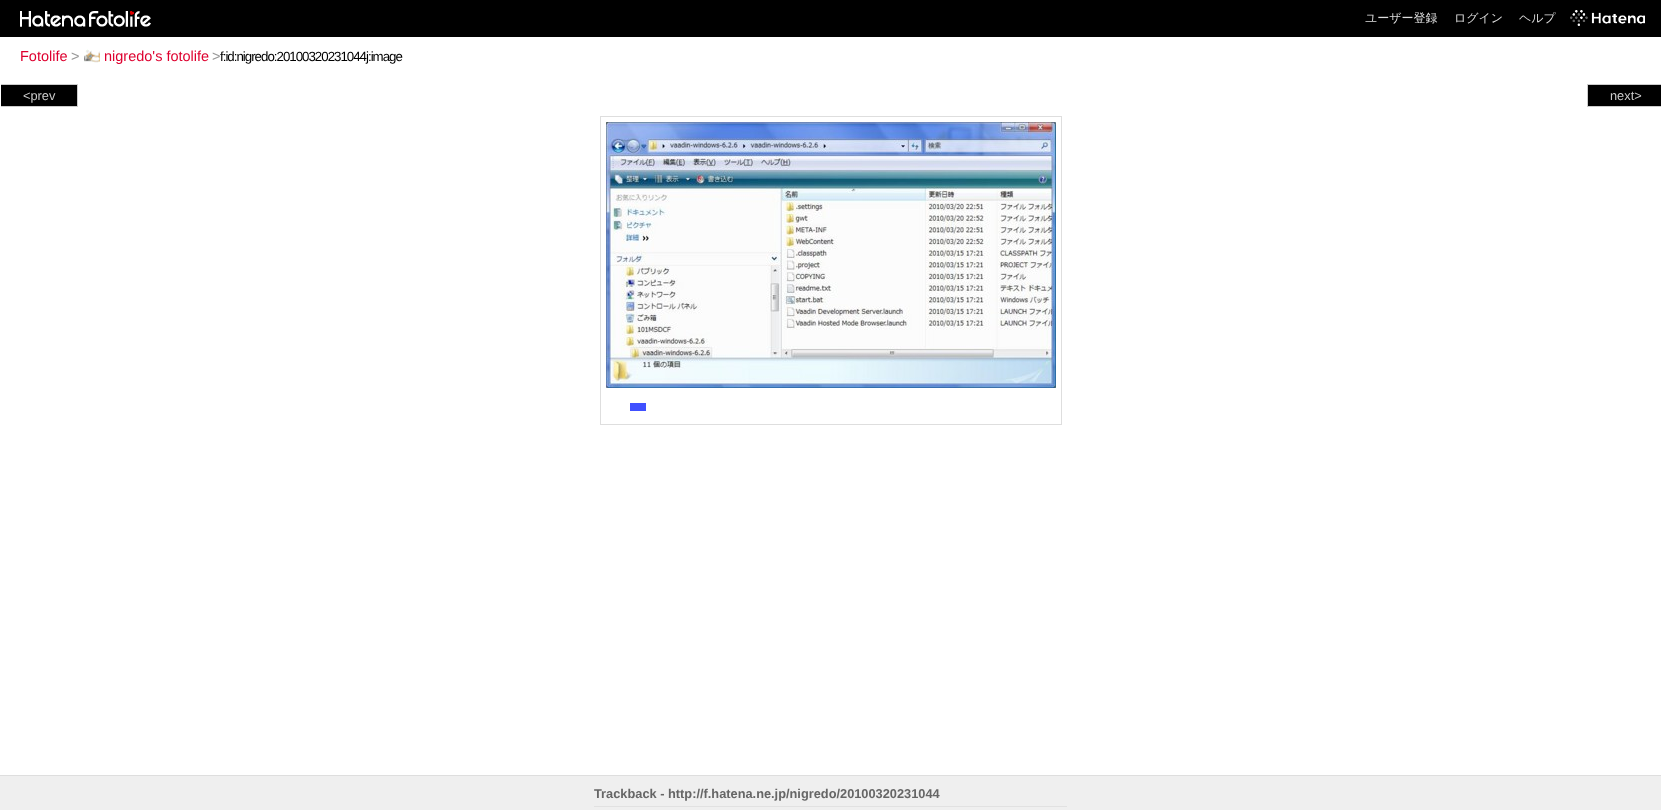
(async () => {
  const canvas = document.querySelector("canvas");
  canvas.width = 1661;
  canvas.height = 810;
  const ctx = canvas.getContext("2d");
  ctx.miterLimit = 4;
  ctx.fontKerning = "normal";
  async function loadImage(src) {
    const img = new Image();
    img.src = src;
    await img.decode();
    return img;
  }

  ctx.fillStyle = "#efefef";
  ctx.fillRect(0, 0, 1661, 810);
  ctx.fillStyle = "#000000";
  ctx.fillRect(0, 0, 1661, 37);
  ctx.drawImage(await loadImage("img/1.png"), 20, 11, 66, 16);
  ctx.drawImage(await loadImage("img/2.png"), 89, 11, 62, 16);
  ctx.drawImage(await loadImage("img/3.png"), 1570, 10, 75, 16);
  ctx.fillStyle = "#ffffff";
  ctx.fillRect(0, 37, 1661, 738);
  ctx.drawImage(await loadImage("img/4.png"), 84, 49, 16, 14);
  for (const [x, y, w, h, color] of [
    [0, 775, 1661, 1, "#dedede"],
    [1, 85, 76, 21, "#000000"],
    [1, 84, 77, 1, "#cccccc"],
    [77, 84, 1, 23, "#cccccc"],
    [1, 106, 77, 1, "#cccccc"],
    [1588, 85, 73, 21, "#000000"],
    [1587, 84, 74, 1, "#cccccc"],
    [1587, 106, 74, 1, "#cccccc"],
    [1587, 84, 1, 23, "#cccccc"],
  ]) {
    ctx.fillStyle = color;
    ctx.fillRect(x, y, w, h);
  }
  ctx.strokeStyle = "#dedede";
  ctx.strokeRect(600.5, 116.5, 461, 308);
  ctx.drawImage(await loadImage("img/5.png"), 606, 122, 450, 266);
  ctx.fillStyle = "#4050ff";
  ctx.fillRect(630, 403, 16, 8);
  ctx.fillStyle = "#e1e1e1";
  ctx.fillRect(594, 806, 473, 1);
  ctx.font = "500 12px WenQuanYi Zen Hei";
  ctx.fillStyle = "#dddddd";
  for (const [text, x, y] of [
    ["ユーザー登録", 1365, 22],
    ["ログイン", 1454, 22],
    ["ヘルプ", 1519, 22],
  ]) {
    ctx.fillText(text, x, y);
  }
  ctx.font = "14.5px Liberation Sans";
  ctx.fillStyle = "#de002f";
  ctx.fillText("Fotolife", 20, 61);
  ctx.fillStyle = "#999999";
  ctx.fillText(">", 71, 61);
  ctx.fillStyle = "#de002f";
  ctx.fillText("nigredo's fotolife", 104, 61);
  ctx.fillStyle = "#999999";
  ctx.fillText(">", 212, 61);
  ctx.letterSpacing = "-1px";
  ctx.font = "13.3px Liberation Sans";
  ctx.fillStyle = "#000000";
  ctx.fillText("f:id:nigredo:20100320231044j:image", 220, 61);
  ctx.letterSpacing = "0px";
  ctx.font = "12.8px Liberation Sans";
  ctx.fillStyle = "#cccccc";
  ctx.fillText("<prev", 23, 100);
  ctx.fillText("next>", 1610, 100);
  ctx.font = "bold 12.8px Liberation Sans";
  ctx.fillStyle = "#666666";
  ctx.fillText("Trackback - http://f.hatena.ne.jp/nigredo/20100320231044", 594, 798);
})();
